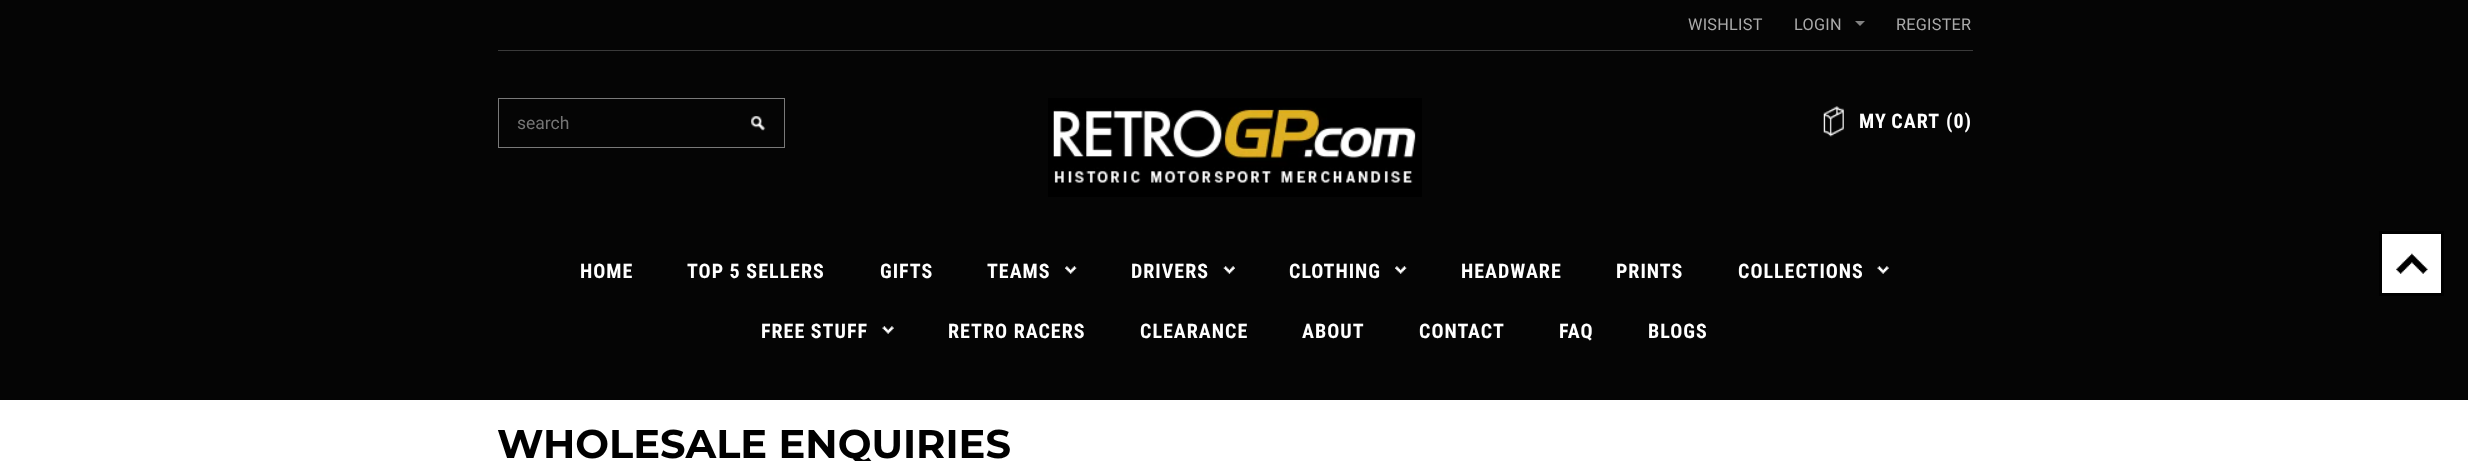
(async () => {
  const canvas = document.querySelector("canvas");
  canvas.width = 2468;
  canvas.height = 461;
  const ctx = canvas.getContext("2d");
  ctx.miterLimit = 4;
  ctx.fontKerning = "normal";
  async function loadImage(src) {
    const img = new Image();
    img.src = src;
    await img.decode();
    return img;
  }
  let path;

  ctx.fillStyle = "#ffffff";
  ctx.fillRect(0, 0, 2468, 461);
  ctx.fillStyle = "#050505";
  ctx.fillRect(0, 0, 2468, 400);
  ctx.fillStyle = "#3a3a3a";
  ctx.fillRect(498, 50, 1475, 1);
  ctx.fillStyle = "#828282";
  path = new Path2D("M1855 21H1865L1860 26Z");
  ctx.fill(path);
  ctx.strokeStyle = "#797979";
  ctx.strokeRect(498.5, 98.5, 286, 49);
  ctx.drawImage(await loadImage("img/1.png"), 751, 116, 15, 15);
  ctx.drawImage(await loadImage("img/2.png"), 1048, 98, 374, 99);
  ctx.drawImage(await loadImage("img/3.png"), 1823, 106, 21, 31);
  ctx.drawImage(await loadImage("img/4.png"), 1065, 266, 12, 8);
  ctx.drawImage(await loadImage("img/5.png"), 1223, 266, 12, 8);
  ctx.drawImage(await loadImage("img/4.png"), 1395, 266, 12, 8);
  ctx.drawImage(await loadImage("img/6.png"), 1877, 266, 12, 8);
  ctx.drawImage(await loadImage("img/6.png"), 882, 326, 12, 8);
  ctx.fillStyle = "#ffffff";
  ctx.fillRect(2382, 234, 59, 59);
  ctx.drawImage(await loadImage("img/7.png"), 2396, 253, 32, 21);
  ctx.strokeStyle = "#000000";
  ctx.lineWidth = 3;
  ctx.strokeRect(2380.5, 232.5, 62, 62);
  ctx.letterSpacing = "0.25px";
  ctx.font = "16.25px Roboto";
  ctx.fillStyle = "#aaaaaa";
  for (const [text, x, y] of [
    ["WISHLIST", 1688, 30],
    ["LOGIN", 1794, 30],
    ["REGISTER", 1896, 30],
  ]) {
    ctx.fillText(text, x, y);
  }
  ctx.letterSpacing = "0px";
  ctx.font = "17.5px Roboto";
  ctx.fillStyle = "#757575";
  ctx.fillText("search", 517, 129);
  ctx.letterSpacing = "1px";
  ctx.wordSpacing = "-1px";
  ctx.font = "bold 20px Roboto Condensed";
  ctx.fillStyle = "#ffffff";
  ctx.fillText("MY CART", 1859, 128);
  ctx.wordSpacing = "0px";
  for (const [text, x, y] of [
    ["(0)", 1946, 128],
    ["HOME", 580, 278],
    ["TOP 5 SELLERS", 687, 278],
    ["GIFTS", 880, 278],
    ["TEAMS", 987, 278],
    ["DRIVERS", 1131, 278],
    ["CLOTHING", 1289, 278],
    ["HEADWARE", 1461, 278],
    ["PRINTS", 1616, 278],
    ["COLLECTIONS", 1738, 278],
    ["FREE STUFF", 761, 338],
    ["RETRO RACERS", 948, 338],
    ["CLEARANCE", 1140, 338],
    ["ABOUT", 1302, 338],
    ["CONTACT", 1419, 338],
    ["FAQ", 1559, 338],
    ["BLOGS", 1648, 338],
  ]) {
    ctx.fillText(text, x, y);
  }
  ctx.letterSpacing = "0px";
  ctx.font = "bold 40px Montserrat";
  ctx.fillStyle = "#000000";
  ctx.fillText("WHOLESALE ENQUIRIES", 497, 458);
})();
